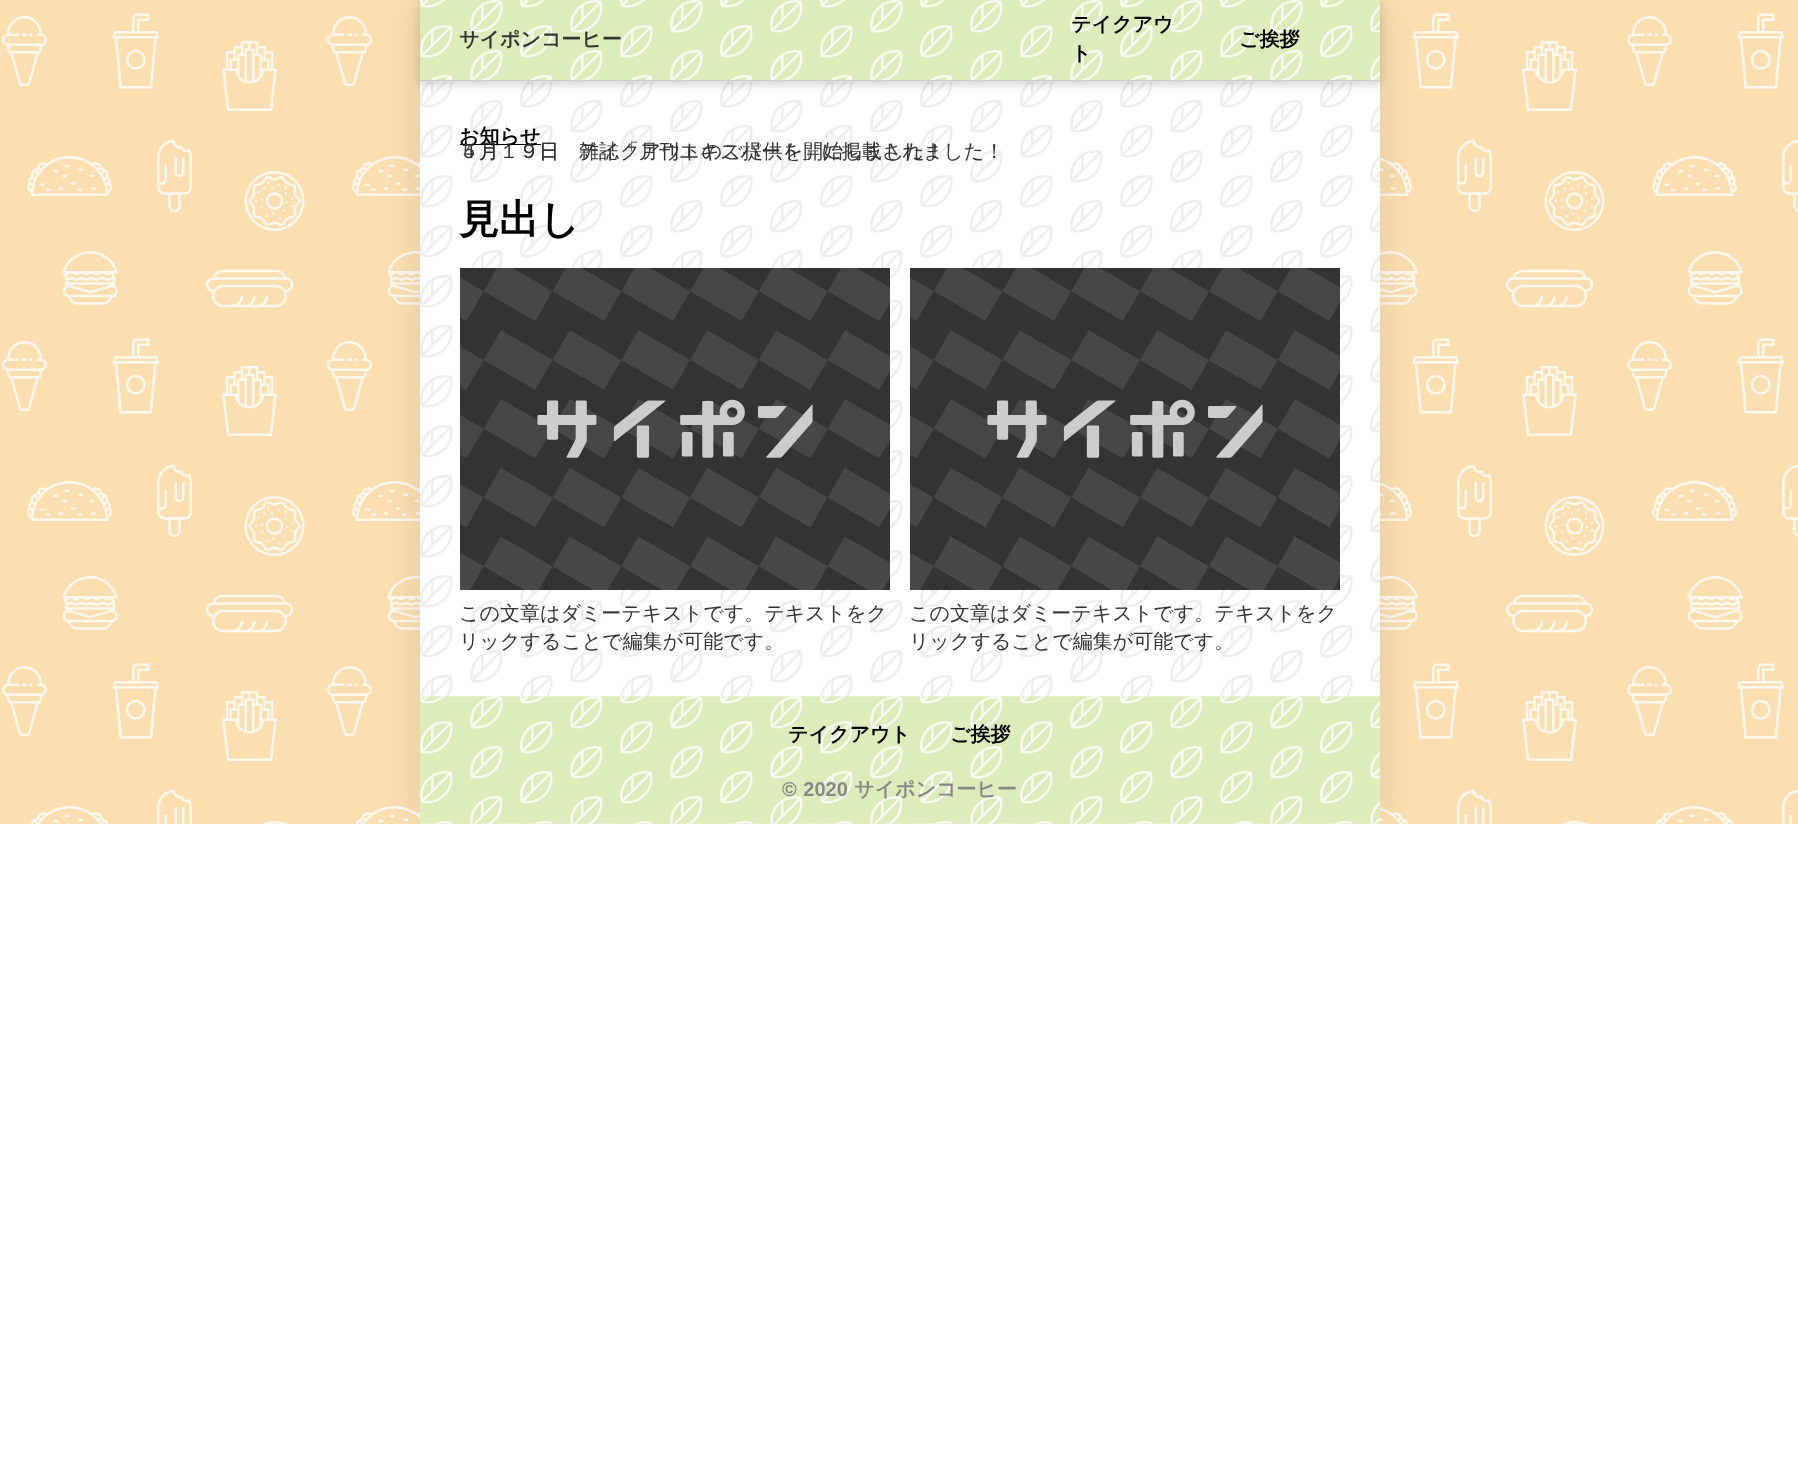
(async () => {
  const canvas = document.querySelector("canvas");
  canvas.width = 1798;
  canvas.height = 1476;
  const ctx = canvas.getContext("2d");
  ctx.miterLimit = 4;
  ctx.fontKerning = "normal";
  async function loadImage(src) {
    const img = new Image();
    img.src = src;
    await img.decode();
    return img;
  }

  ctx.fillStyle = "#ffffff";
  ctx.fillRect(0, 0, 1798, 1476);
  ctx.drawImage(await loadImage("img/1.png"), 0, 0, 1798, 824);
  ctx.save();
  ctx.beginPath();
  ctx.rect(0, 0, 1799, 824);
  ctx.clip();
  ctx.fillStyle = "rgba(0, 0, 0, 0.1)";
  ctx.filter = "blur(20px)";
  ctx.beginPath();
  ctx.rect(420, 0, 960, 824);
  ctx.fill();
  ctx.filter = "none";
  ctx.restore();
  ctx.drawImage(await loadImage("img/2.png"), 420, 81, 960, 743);
  ctx.fillStyle = "rgba(0, 0, 0, 0.16)";
  ctx.filter = "blur(4px)";
  ctx.beginPath();
  ctx.rect(420, 4, 960, 81);
  ctx.fill();
  ctx.filter = "none";
  ctx.drawImage(await loadImage("img/3.png"), 420, 0, 960, 82);
  ctx.fillStyle = "#cccccc";
  ctx.fillRect(420, 80, 960, 1);
  ctx.fillStyle = "#000000";
  ctx.fillRect(460, 144, 81, 1);
  ctx.drawImage(await loadImage("img/4.png"), 460, 268, 430, 322);
  ctx.drawImage(await loadImage("img/5.png"), 910, 268, 430, 322);
  ctx.drawImage(await loadImage("img/6.png"), 420, 696, 960, 128);
  ctx.font = "bold 20px WenQuanYi Zen Hei";
  ctx.fillStyle = "#333333";
  ctx.fillText("サイポンコーヒー", 459, 46);
  ctx.fillStyle = "#000000";
  for (const [text, x, y] of [
    ["テイクアウ", 1071, 31],
    ["ト", 1071, 60],
    ["ご挨拶", 1239, 46],
    ["お知らせ", 459, 143],
  ]) {
    ctx.fillText(text, x, y);
  }
  ctx.font = "500 20px WenQuanYi Zen Hei";
  ctx.fillStyle = "#333333";
  ctx.fillText("５月１９日　雑誌「月刊エキスパート」に掲載されました！", 459, 158);
  ctx.fillText("４月　９日　テイクアウトのご提供を開始しました！", 459, 158);
  ctx.font = "bold 40px WenQuanYi Zen Hei";
  ctx.fillStyle = "#000000";
  ctx.fillText("見出し", 459, 233);
  ctx.font = "500 20px WenQuanYi Zen Hei";
  ctx.fillStyle = "#333333";
  for (const [text, x, y] of [
    ["この文章はダミーテキストです。テキストをク", 459, 620],
    ["リックすることで編集が可能です。", 459, 648],
    ["この文章はダミーテキストです。テキストをク", 909, 620],
    ["リックすることで編集が可能です。", 909, 648],
  ]) {
    ctx.fillText(text, x, y);
  }
  ctx.font = "bold 20px WenQuanYi Zen Hei";
  ctx.fillStyle = "#000000";
  ctx.fillText("テイクアウト", 788, 741);
  ctx.fillText("ご挨拶", 950, 741);
  ctx.wordSpacing = "1px";
  ctx.font = "bold 20px Liberation Sans";
  ctx.fillStyle = "#888888";
  ctx.fillText("© 2020", 782, 796);
  ctx.wordSpacing = "0px";
  ctx.font = "bold 20px WenQuanYi Zen Hei";
  ctx.fillText("サイポンコーヒー", 854, 796);
})();
